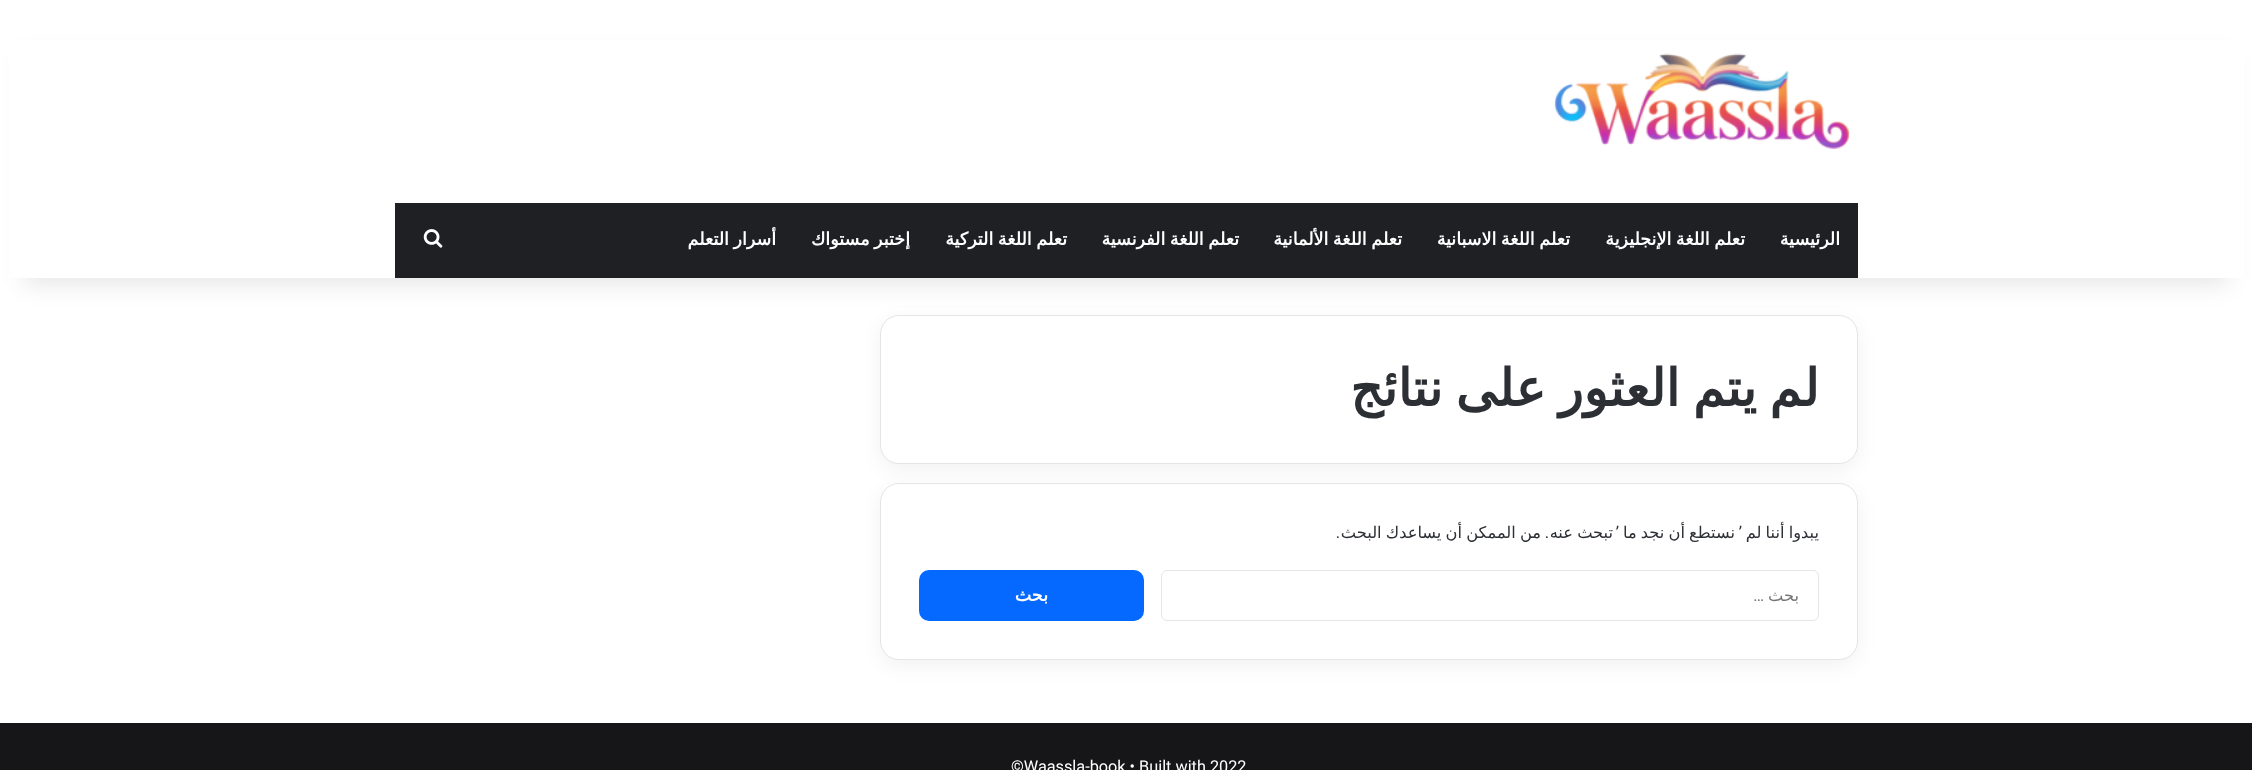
(async () => {
  const canvas = document.querySelector("canvas");
  canvas.width = 2252;
  canvas.height = 770;
  const ctx = canvas.getContext("2d");
  ctx.miterLimit = 4;
  ctx.fontKerning = "normal";
  async function loadImage(src) {
    const img = new Image();
    img.src = src;
    await img.decode();
    return img;
  }

  ctx.fillStyle = "#ffffff";
  ctx.fillRect(0, 0, 2252, 770);
  ctx.fillStyle = "rgba(0, 0, 0, 0.05)";
  ctx.filter = "blur(9.5px)";
  ctx.beginPath();
  ctx.roundRect(880, 321, 978, 149, 19);
  ctx.fill();
  ctx.filter = "none";
  ctx.fillStyle = "#ffffff";
  ctx.beginPath();
  ctx.roundRect(880.5, 315.5, 977, 148, 18.5);
  ctx.fill();
  ctx.strokeStyle = "#e5e5e5";
  ctx.stroke();
  ctx.fillStyle = "rgba(0, 0, 0, 0.1)";
  ctx.filter = "blur(12.5px)";
  ctx.beginPath();
  ctx.rect(25, 56, 2203, 228);
  ctx.fill();
  ctx.filter = "none";
  ctx.fillStyle = "#ffffff";
  ctx.fillRect(9, 40, 2235, 238);
  ctx.drawImage(await loadImage("img/1.png"), 1554, 53, 297, 97);
  ctx.fillStyle = "#1f2024";
  ctx.fillRect(395, 203, 1463, 75);
  ctx.drawImage(await loadImage("img/2.png"), 423, 229, 20, 19);
  ctx.fillStyle = "rgba(0, 0, 0, 0.05)";
  ctx.filter = "blur(9.5px)";
  ctx.beginPath();
  ctx.roundRect(880, 489, 978, 177, 19);
  ctx.fill();
  ctx.filter = "none";
  ctx.fillStyle = "#ffffff";
  ctx.beginPath();
  ctx.roundRect(880.5, 483.5, 977, 176, 18.5);
  ctx.fill();
  ctx.stroke();
  ctx.beginPath();
  ctx.roundRect(1161.5, 570.5, 657, 50, 5.5);
  ctx.strokeStyle = "#e6e6e6";
  ctx.stroke();
  ctx.fillStyle = "#0669ff";
  ctx.beginPath();
  ctx.roundRect(919, 570, 225, 51, 10);
  ctx.fill();
  ctx.fillStyle = "#161619";
  ctx.fillRect(0, 723, 2252, 47);
  ctx.direction = "rtl";
  ctx.font = "bold 17.5px DejaVu Sans";
  ctx.fillStyle = "#ffffff";
  ctx.fillText("الرئيسية", 1840, 245);
  ctx.wordSpacing = "-1px";
  for (const [text, x, y] of [
    ["تعلم اللغة الإنجليزية", 1745, 245],
    ["تعلم اللغة الاسبانية", 1570, 245],
    ["تعلم اللغة الألمانية", 1402, 245],
    ["تعلم اللغة الفرنسية", 1239, 245],
    ["تعلم اللغة التركية", 1067, 245],
    ["إختبر مستواك", 910, 245],
    ["أسرار التعلم", 776, 245],
  ]) {
    ctx.fillText(text, x, y);
  }
  ctx.wordSpacing = "-3.5px";
  ctx.font = "bold 51.25px DejaVu Sans";
  ctx.fillStyle = "#2c2f34";
  ctx.fillText("لم يتم العثور على نتائج", 1819, 406);
  ctx.wordSpacing = "-1px";
  ctx.font = "16.25px DejaVu Sans";
  ctx.fillText("يبدوا أننا لم", 1819, 538);
  ctx.wordSpacing = "0px";
  ctx.font = "16.25px Roboto";
  ctx.fillText("’", 1742, 538);
  ctx.wordSpacing = "-1px";
  ctx.font = "16.25px DejaVu Sans";
  ctx.fillText("نستطع أن نجد ما", 1735, 538);
  ctx.wordSpacing = "0px";
  ctx.font = "16.25px Roboto";
  ctx.fillText("’", 1619, 538);
  ctx.wordSpacing = "-1px";
  ctx.font = "16.25px DejaVu Sans";
  ctx.fillText("من الممكن أن يساعدك البحث", 1541, 538);
  ctx.fillText("تبحث عنه", 1613, 538);
  ctx.wordSpacing = "0px";
  ctx.font = "16.25px Roboto";
  ctx.fillText(".", 1549, 538);
  ctx.fillText(".", 1340, 538);
  ctx.font = "16.25px DejaVu Sans";
  ctx.fillStyle = "#757575";
  ctx.fillText("بحث", 1799, 601);
  ctx.font = "16.25px Roboto";
  ctx.fillText("…", 1764, 601);
  ctx.font = "bold 17.5px DejaVu Sans";
  ctx.fillStyle = "#ffffff";
  ctx.fillText("بحث", 1048, 601);
  ctx.direction = "ltr";
  ctx.font = "16.25px Roboto";
  ctx.fillText("©Waassla-book • Built with 2022", 1011, 772);
})();
